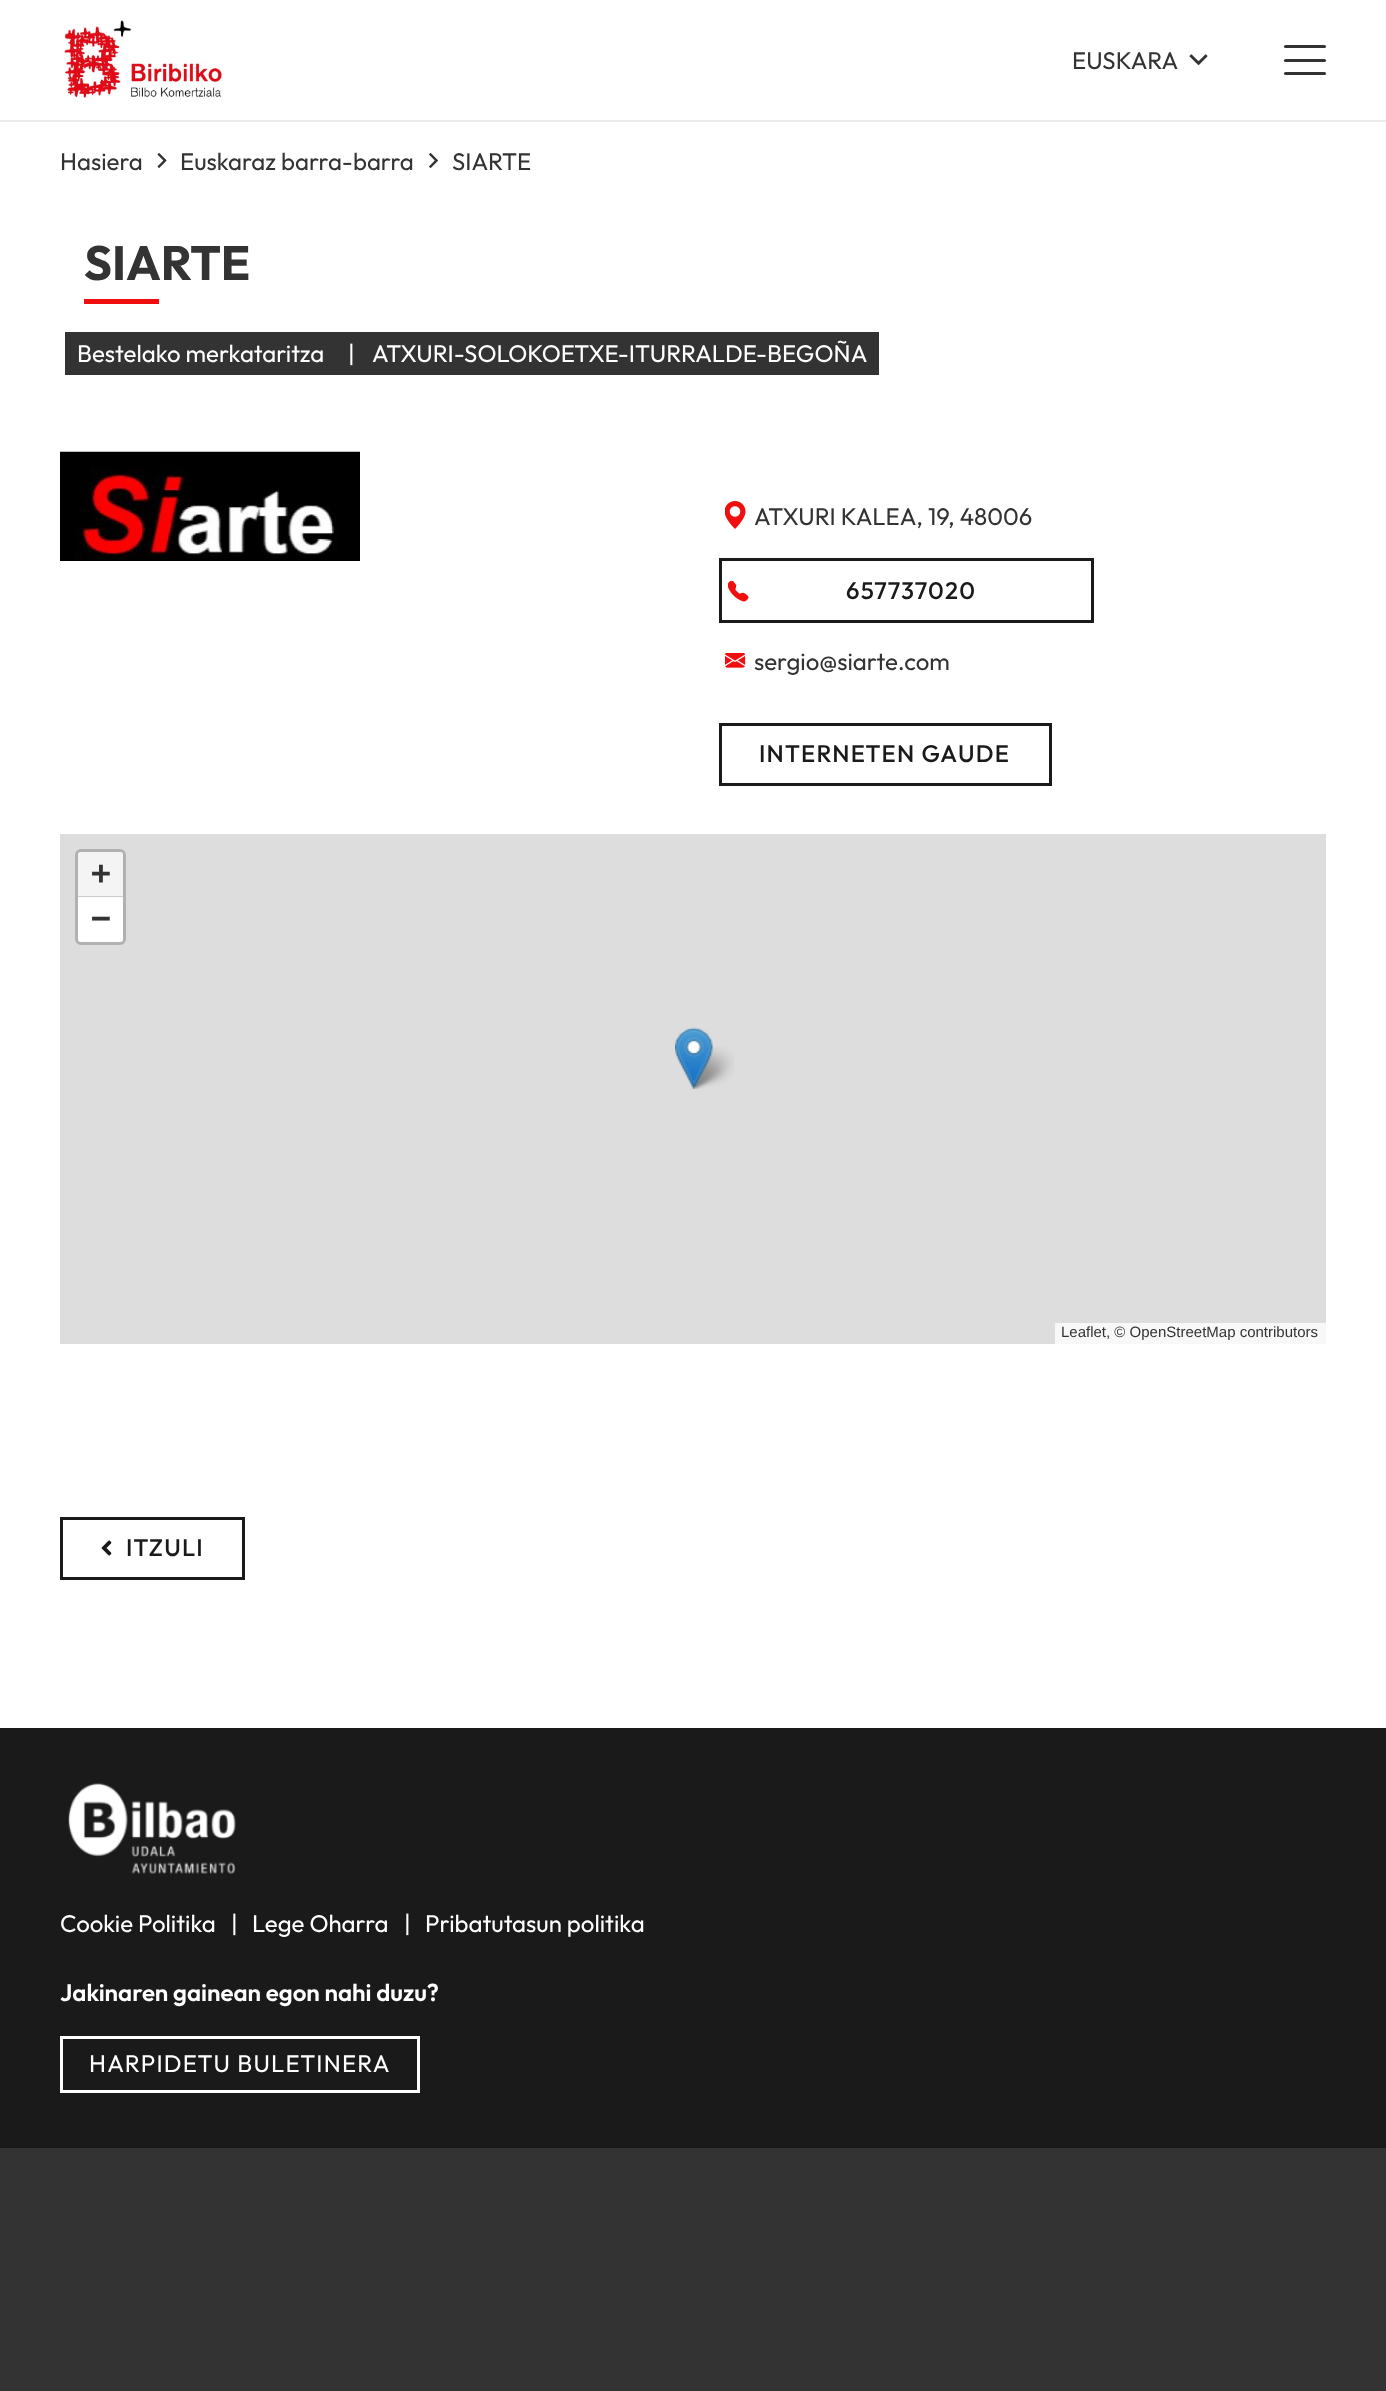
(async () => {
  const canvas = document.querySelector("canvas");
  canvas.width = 1386;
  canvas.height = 2391;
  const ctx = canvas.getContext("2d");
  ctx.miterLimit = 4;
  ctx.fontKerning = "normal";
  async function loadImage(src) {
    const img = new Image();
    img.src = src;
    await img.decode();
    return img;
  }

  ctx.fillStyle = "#333333";
  ctx.fillRect(0, 0, 1386, 2391);
  ctx.fillStyle = "#ffffff";
  ctx.fillRect(0, 0, 1386, 1728);
  ctx.fillStyle = "#ebebeb";
  ctx.fillRect(0, 120, 1386, 2);
  ctx.drawImage(await loadImage("img/1.png"), 64, 20, 158, 78);
  ctx.drawImage(await loadImage("img/2.png"), 1189, 54, 19, 11);
  ctx.fillStyle = "#333333";
  ctx.beginPath();
  ctx.roundRect(1284, 59, 42, 3, 1.5);
  ctx.fill();
  ctx.beginPath();
  ctx.roundRect(1284, 45, 42, 3, 1.5);
  ctx.fill();
  ctx.beginPath();
  ctx.roundRect(1284, 72, 42, 3, 1.5);
  ctx.fill();
  ctx.drawImage(await loadImage("img/3.png"), 157, 153, 10, 15);
  ctx.drawImage(await loadImage("img/4.png"), 429, 153, 9, 15);
  ctx.fillStyle = "#f10e0f";
  ctx.fillRect(84, 299, 75, 5);
  ctx.fillStyle = "#333333";
  ctx.fillRect(65, 332, 814, 43);
  ctx.drawImage(await loadImage("img/5.png"), 60, 451, 300, 110);
  ctx.drawImage(await loadImage("img/6.png"), 725, 501, 21, 28);
  ctx.drawImage(await loadImage("img/7.png"), 728, 581, 21, 21);
  ctx.strokeStyle = "#1a1a1a";
  ctx.lineWidth = 3;
  ctx.strokeRect(720.5, 559.5, 372, 62);
  ctx.drawImage(await loadImage("img/8.png"), 725, 653, 21, 15);
  ctx.strokeRect(720.5, 724.5, 330, 60);
  ctx.fillStyle = "#dddddd";
  ctx.fillRect(60, 834, 1266, 510);
  ctx.beginPath();
  ctx.roundRect(76.5, 850.5, 48, 93, 4.5);
  ctx.strokeStyle = "#b1b1b1";
  ctx.stroke();
  ctx.fillStyle = "#f4f4f4";
  ctx.beginPath();
  ctx.roundRect(78, 852, 45, 45, [3, 3, 0, 0]);
  ctx.fill();
  ctx.fillStyle = "#cccccc";
  ctx.fillRect(78, 896, 45, 1);
  ctx.fillStyle = "#ffffff";
  ctx.beginPath();
  ctx.roundRect(78, 897, 45, 45, [0, 0, 3, 3]);
  ctx.fill();
  ctx.fillStyle = "#f8f8f8";
  ctx.fillRect(1055, 1323, 271, 21);
  ctx.drawImage(await loadImage("img/10.png"), 688, 1046, 46, 43);
  ctx.drawImage(await loadImage("img/9.png"), 675, 1027, 38, 62);
  ctx.strokeStyle = "#1a1a1a";
  ctx.strokeRect(61.5, 1518.5, 182, 60);
  ctx.drawImage(await loadImage("img/11.png"), 101, 1540, 11, 16);
  ctx.fillStyle = "#1a1a1a";
  ctx.fillRect(0, 1728, 1386, 420);
  ctx.drawImage(await loadImage("img/12.png"), 68, 1783, 168, 91);
  ctx.strokeStyle = "#ffffff";
  ctx.strokeRect(61.5, 2037.5, 357, 54);
  ctx.font = "24px Outfit";
  ctx.fillStyle = "#333333";
  for (const [text, x, y] of [
    ["EUSKARA", 1072, 69],
    ["Hasiera", 60, 170],
    ["Euskaraz barra-barra", 180, 170],
    ["SIARTE", 452, 170],
  ]) {
    ctx.fillText(text, x, y);
  }
  ctx.font = "bold 48px Outfit";
  ctx.fillText("SIARTE", 84, 280);
  ctx.font = "24px Outfit";
  ctx.fillStyle = "#ffffff";
  for (const [text, x, y] of [
    ["Bestelako merkataritza", 77, 362],
    ["|", 348, 362],
    ["ATXURI-SOLOKOETXE-ITURRALDE-BEGOÑA", 372, 362],
  ]) {
    ctx.fillText(text, x, y);
  }
  ctx.fillStyle = "#333333";
  ctx.fillText("ATXURI KALEA, 19, 48006", 754, 525);
  ctx.letterSpacing = "1.2px";
  ctx.font = "500 24px Outfit";
  ctx.fillStyle = "#1a1a1a";
  ctx.fillText("657737020", 846, 599);
  ctx.letterSpacing = "0px";
  ctx.font = "24px Outfit";
  ctx.fillStyle = "#333333";
  ctx.fillText("sergio@siarte.com", 754, 670);
  ctx.letterSpacing = "1.2px";
  ctx.font = "500 24px Outfit";
  ctx.fillStyle = "#1a1a1a";
  ctx.fillText("INTERNETEN GAUDE", 759, 762);
  ctx.letterSpacing = "0px";
  ctx.font = "bold 33px DejaVu Sans Mono";
  ctx.fillStyle = "#333333";
  ctx.fillText("+", 91, 884);
  ctx.fillText("−", 91, 929);
  ctx.font = "15px Liberation Sans";
  ctx.fillText("Leaflet, © OpenStreetMap contributors", 1061, 1337);
  ctx.letterSpacing = "1.2px";
  ctx.font = "500 24px Outfit";
  ctx.fillStyle = "#1a1a1a";
  ctx.fillText("ITZULI", 126, 1556);
  ctx.letterSpacing = "0px";
  ctx.font = "24px Outfit";
  ctx.fillStyle = "#ffffff";
  for (const [text, x, y] of [
    ["Cookie Politika", 60, 1932],
    ["|", 231, 1932],
    ["Lege Oharra", 252, 1932],
    ["|", 404, 1932],
    ["Pribatutasun politika", 425, 1932],
  ]) {
    ctx.fillText(text, x, y);
  }
  ctx.font = "600 24px Outfit";
  ctx.fillText("Jakinaren gainean egon nahi duzu?", 60, 2001);
  ctx.letterSpacing = "1.2px";
  ctx.font = "24px Outfit";
  ctx.fillText("HARPIDETU BULETINERA", 89, 2072);
})();
